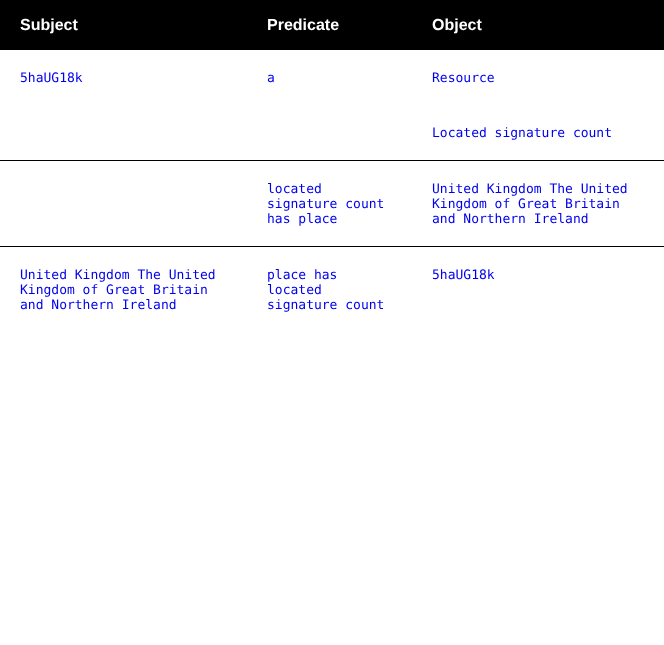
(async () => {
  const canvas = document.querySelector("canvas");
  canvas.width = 664;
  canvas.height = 645;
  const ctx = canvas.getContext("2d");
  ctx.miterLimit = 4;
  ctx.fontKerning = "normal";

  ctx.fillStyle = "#ffffff";
  ctx.fillRect(0, 0, 664, 645);
  for (const [x, y, w, h, color] of [
    [0, 0, 664, 50, "#000000"],
    [0, 160, 664, 1, "#000000"],
    [0, 246, 664, 1, "#000000"],
  ]) {
    ctx.fillStyle = color;
    ctx.fillRect(x, y, w, h);
  }
  ctx.font = "bold 16px Liberation Sans";
  ctx.fillStyle = "#ffffff";
  for (const [text, x, y] of [
    ["Subject", 20, 30],
    ["Predicate", 267, 30],
    ["Object", 432, 30],
  ]) {
    ctx.fillText(text, x, y);
  }
  ctx.font = "13px DejaVu Sans Mono";
  ctx.fillStyle = "#0000ee";
  for (const [text, x, y] of [
    ["5haUG18k", 20, 82],
    ["a", 267, 82],
    ["Resource", 432, 82],
    ["Located signature count", 432, 137],
    ["located", 267, 193],
    ["signature count", 267, 208],
    ["has place", 267, 223],
    ["United Kingdom The United", 432, 193],
    ["Kingdom of Great Britain", 432, 208],
    ["and Northern Ireland", 432, 223],
    ["United Kingdom The United", 20, 279],
    ["Kingdom of Great Britain", 20, 294],
    ["and Northern Ireland", 20, 309],
    ["place has", 267, 279],
    ["located", 267, 294],
    ["signature count", 267, 309],
    ["5haUG18k", 432, 279],
  ]) {
    ctx.fillText(text, x, y);
  }
})();
